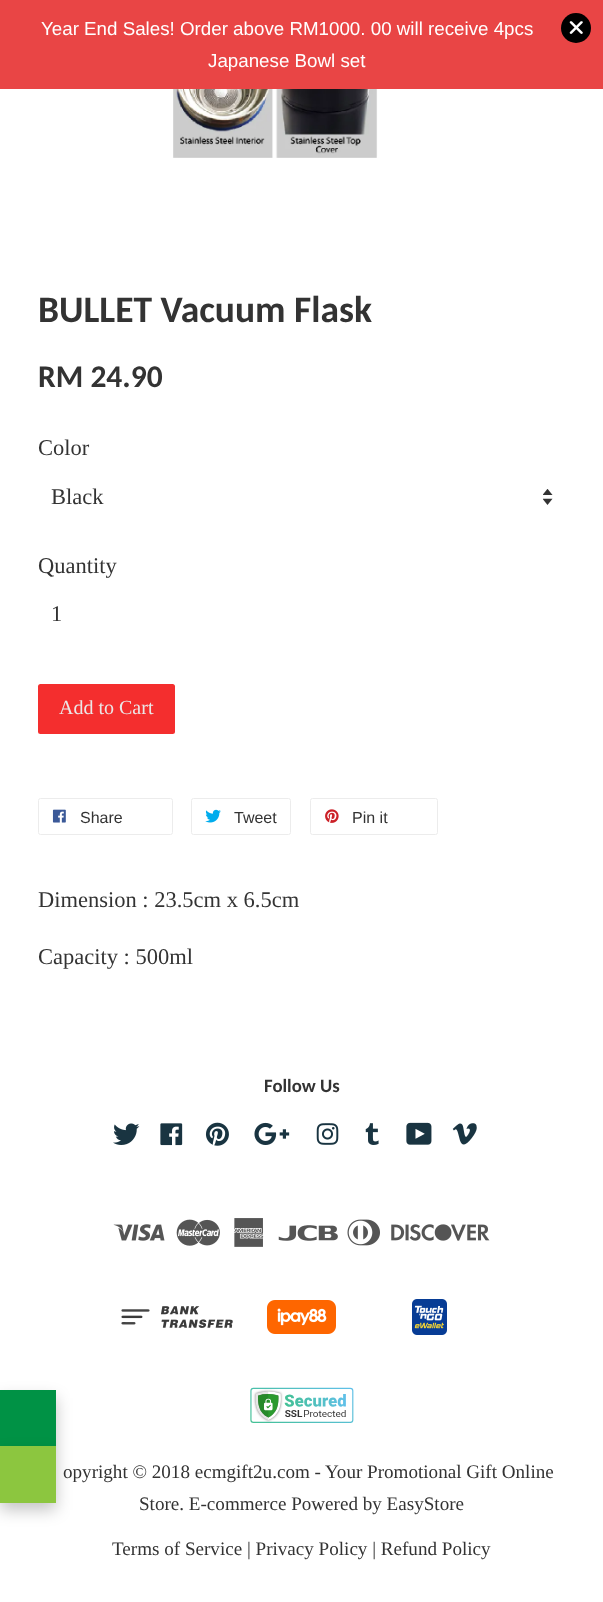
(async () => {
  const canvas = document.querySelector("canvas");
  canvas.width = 603;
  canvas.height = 1602;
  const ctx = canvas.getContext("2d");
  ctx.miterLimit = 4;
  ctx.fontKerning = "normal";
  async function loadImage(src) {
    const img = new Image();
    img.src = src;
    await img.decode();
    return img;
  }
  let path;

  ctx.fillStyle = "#ffffff";
  ctx.fillRect(0, 0, 603, 1602);
  ctx.fillStyle = "#e94545";
  ctx.fillRect(0, 0, 603, 89);
  ctx.fillStyle = "#000000";
  ctx.beginPath();
  ctx.arc(576, 28, 15, 0, Math.PI * 2);
  ctx.fill();
  ctx.fillStyle = "#ffffff";
  path = new Path2D("M582.5 21.5C583 22 583 22.5 582.5 23L572 33.5C571.5 34 570.5 34 570 33.5C569.5 33 569.5 32.5 570 32L580.5 21.5C581 21 582 21 582.5 21.5Z");
  ctx.fill(path);
  path = new Path2D("M570 21.5C570.5 21 571.5 21 572 21.5L582.5 32C583 32.5 583 33 582.5 33.5C582 34 581 34 580.5 33.5L570 23C569.5 22.5 569.5 22 570 21.5Z");
  ctx.fill(path);
  ctx.drawImage(await loadImage("img/1.png"), 113, 89, 361, 69);
  ctx.drawImage(await loadImage("img/2.png"), 543, 489, 10, 16);
  ctx.fillStyle = "#f42e2e";
  ctx.beginPath();
  ctx.roundRect(38, 684, 137, 50, 2.5);
  ctx.fill();
  ctx.beginPath();
  ctx.roundRect(38.5, 798.5, 134, 36, 2);
  ctx.strokeStyle = "#ececec";
  ctx.stroke();
  ctx.drawImage(await loadImage("img/3.png"), 52, 809, 14, 14);
  ctx.beginPath();
  ctx.roundRect(191.5, 798.5, 99, 36, 2);
  ctx.stroke();
  ctx.drawImage(await loadImage("img/4.png"), 205, 809, 16, 14);
  ctx.beginPath();
  ctx.roundRect(310.5, 798.5, 127, 36, 2);
  ctx.stroke();
  ctx.drawImage(await loadImage("img/5.png"), 325, 809, 14, 14);
  ctx.fillStyle = "rgba(0, 0, 0, 0.23)";
  ctx.filter = "blur(8px)";
  ctx.beginPath();
  ctx.rect(0, 1398, 56, 56);
  ctx.fill();
  ctx.filter = "none";
  ctx.fillStyle = "#009245";
  ctx.fillRect(0, 1390, 56, 56);
  ctx.fillStyle = "rgba(0, 0, 0, 0.23)";
  ctx.filter = "blur(8px)";
  ctx.beginPath();
  ctx.rect(0, 1454, 56, 56);
  ctx.fill();
  ctx.filter = "none";
  ctx.fillStyle = "#8cc63f";
  ctx.fillRect(0, 1446, 56, 57);
  ctx.drawImage(await loadImage("img/6.png"), 113, 1123, 27, 22);
  ctx.drawImage(await loadImage("img/7.png"), 160, 1123, 23, 23);
  ctx.drawImage(await loadImage("img/8.png"), 205, 1122, 24, 24);
  ctx.drawImage(await loadImage("img/9.png"), 254, 1122, 36, 23);
  ctx.drawImage(await loadImage("img/10.png"), 316, 1123, 23, 22);
  ctx.drawImage(await loadImage("img/11.png"), 365, 1123, 14, 22);
  ctx.drawImage(await loadImage("img/12.png"), 406, 1122, 26, 23);
  ctx.drawImage(await loadImage("img/13.png"), 452, 1123, 25, 22);
  ctx.drawImage(await loadImage("img/14.png"), 113, 1224, 52, 17);
  ctx.drawImage(await loadImage("img/15.png"), 176, 1219, 44, 27);
  ctx.drawImage(await loadImage("img/16.png"), 234, 1218, 30, 29);
  ctx.drawImage(await loadImage("img/17.png"), 278, 1225, 60, 16);
  ctx.drawImage(await loadImage("img/18.png"), 347, 1219, 33, 27);
  ctx.drawImage(await loadImage("img/19.png"), 391, 1224, 99, 17);
  ctx.drawImage(await loadImage("img/20.png"), 121, 1306, 112, 22);
  ctx.drawImage(await loadImage("img/21.png"), 267, 1300, 69, 34);
  ctx.drawImage(await loadImage("img/22.png"), 412, 1299, 35, 36);
  ctx.drawImage(await loadImage("img/23.png"), 250, 1387, 104, 36);
  ctx.font = "18.75px Liberation Sans";
  ctx.fillStyle = "#ffffff";
  ctx.fillText("Year End Sales! Order above RM1000. 00 will receive 4pcs", 41, 35);
  ctx.fillText("Japanese Bowl set", 208, 67);
  ctx.font = "bold 37.5px Carlito";
  ctx.fillStyle = "#333333";
  ctx.fillText("BULLET Vacuum Flask", 38, 322);
  ctx.font = "bold 31.5px Carlito";
  ctx.fillText("RM 24.90", 38, 387);
  ctx.font = "22.5px Liberation Serif";
  for (const [text, x, y] of [
    ["Color", 38, 455],
    ["Black", 51, 504],
    ["Quantity", 38, 573],
    ["1", 51, 621],
  ]) {
    ctx.fillText(text, x, y);
  }
  ctx.font = "20px Liberation Serif";
  ctx.fillStyle = "#ebe6e6";
  ctx.fillText("Add to Cart", 59, 714);
  ctx.font = "16px Liberation Sans";
  ctx.fillStyle = "#333333";
  for (const [text, x, y] of [
    ["Share", 80, 823],
    ["Tweet", 234, 823],
    ["Pin it", 352, 823],
  ]) {
    ctx.fillText(text, x, y);
  }
  ctx.font = "22.5px Liberation Serif";
  ctx.fillText("Dimension : 23.5cm x 6.5cm", 38, 907);
  ctx.fillText("Capacity : 500ml", 38, 964);
  ctx.font = "bold 18.75px Carlito";
  ctx.fillText("Follow Us", 264, 1092);
  ctx.font = "19.1px Liberation Serif";
  for (const [text, x, y] of [
    ["opyright © 2018 ecmgift2u.com - Your Promotional Gift Online", 63, 1478],
    ["Store. E-commerce Powered by EasyStore", 139, 1510],
    ["Terms of Service | Privacy Policy | Refund Policy", 112, 1555],
  ]) {
    ctx.fillText(text, x, y);
  }
})();
